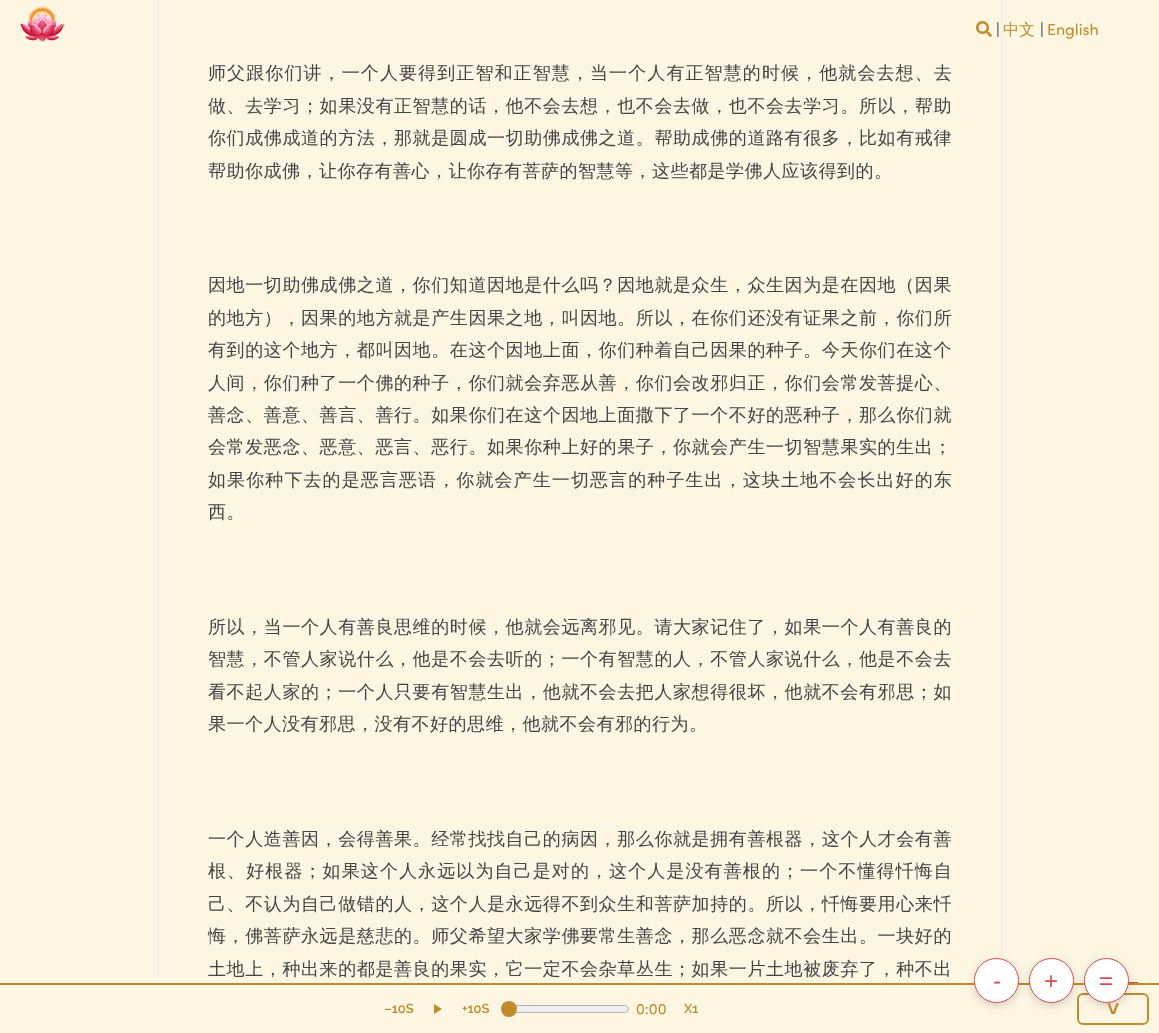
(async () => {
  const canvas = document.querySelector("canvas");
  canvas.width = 1159;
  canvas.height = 1033;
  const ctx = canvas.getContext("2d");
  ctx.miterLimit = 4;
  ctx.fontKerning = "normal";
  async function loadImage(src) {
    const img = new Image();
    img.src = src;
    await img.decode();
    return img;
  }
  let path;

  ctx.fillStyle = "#fdf6e3";
  ctx.fillRect(0, 0, 1159, 1033);
  ctx.drawImage(await loadImage("img/1.png"), 20, 5, 45, 37);
  ctx.strokeStyle = "#f0f0f0";
  ctx.strokeRect(157.5, -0.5, 845, 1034);
  ctx.drawImage(await loadImage("img/2.png"), 976, 21, 16, 16);
  ctx.fillStyle = "#d65050";
  ctx.beginPath();
  ctx.roundRect(1099, 982, 40, 40, 2);
  ctx.fill();
  ctx.fillStyle = "#fdf6e3";
  ctx.fillRect(157, 985, 982, 48);
  ctx.fillStyle = "#c18c2a";
  ctx.fillRect(0, 983, 1159, 2);
  ctx.fillStyle = "rgba(0, 0, 0, 0.15)";
  ctx.filter = "blur(4px)";
  ctx.beginPath();
  ctx.roundRect(974, 961, 45, 45, 22.5);
  ctx.fill();
  ctx.filter = "none";
  ctx.fillStyle = "#ffffff";
  ctx.beginPath();
  ctx.arc(996.5, 980.5, 22, 0, Math.PI * 2);
  ctx.fill();
  ctx.strokeStyle = "#d65050";
  ctx.stroke();
  ctx.beginPath();
  ctx.roundRect(1078, 994, 70, 30, 5);
  ctx.strokeStyle = "#c18c2a";
  ctx.lineWidth = 2;
  ctx.stroke();
  ctx.fillStyle = "rgba(0, 0, 0, 0.15)";
  ctx.filter = "blur(4px)";
  ctx.beginPath();
  ctx.roundRect(1029, 961, 45, 45, 22.5);
  ctx.fill();
  ctx.filter = "none";
  ctx.fillStyle = "#ffffff";
  ctx.beginPath();
  ctx.arc(1051.5, 980.5, 22, 0, Math.PI * 2);
  ctx.fill();
  ctx.strokeStyle = "#d65050";
  ctx.lineWidth = 1;
  ctx.stroke();
  ctx.fillStyle = "rgba(0, 0, 0, 0.15)";
  ctx.filter = "blur(4px)";
  ctx.beginPath();
  ctx.roundRect(1084, 961, 45, 45, 22.5);
  ctx.fill();
  ctx.filter = "none";
  ctx.fillStyle = "#ffffff";
  ctx.beginPath();
  ctx.arc(1106.5, 980.5, 22, 0, Math.PI * 2);
  ctx.fill();
  ctx.stroke();
  ctx.fillStyle = "#c18c2a";
  path = new Path2D("M434 1004L442 1009L434 1014Z");
  ctx.fill(path);
  ctx.fillStyle = "#efefef";
  ctx.beginPath();
  ctx.roundRect(502.5, 1005.5, 126, 7, 3.5);
  ctx.fill();
  ctx.strokeStyle = "#b2b2b2";
  ctx.stroke();
  ctx.fillStyle = "#c18c2a";
  ctx.beginPath();
  ctx.arc(509, 1009, 8, 0, Math.PI * 2);
  ctx.fill();
  ctx.font = "16px Sofia";
  ctx.fillStyle = "#333333";
  ctx.fillText("|", 996, 35);
  ctx.font = "500 16px WenQuanYi Zen Hei";
  ctx.fillStyle = "#c18c2a";
  ctx.fillText("中文", 1003, 35);
  ctx.font = "16px Sofia";
  ctx.fillStyle = "#333333";
  ctx.fillText("|", 1040, 35);
  ctx.fillStyle = "#c18c2a";
  ctx.fillText("English", 1047, 35);
  ctx.letterSpacing = "1.1px";
  ctx.font = "500 18px WenQuanYi Zen Hei";
  ctx.fillStyle = "#444444";
  ctx.fillText("师父跟你们讲，一个人要得到正智和正智慧，当一个人有正智慧的时候，他就会去想、去", 208, 79);
  ctx.letterSpacing = "0.6px";
  ctx.fillText("做、去学习；如果没有正智慧的话，他不会去想，也不会去做，也不会去学习。所以，帮助", 208, 112);
  ctx.fillText("你们成佛成道的方法，那就是圆成一切助佛成佛之道。帮助成佛的道路有很多，比如有戒律", 208, 144);
  ctx.letterSpacing = "0.5px";
  ctx.fillText("帮助你成佛，让你存有善心，让你存有菩萨的智慧等，这些都是学佛人应该得到的。", 208, 177);
  ctx.letterSpacing = "0.6px";
  for (const [text, x, y] of [
    ["因地一切助佛成佛之道，你们知道因地是什么吗？因地就是众生，众生因为是在因地（因果", 208, 291],
    ["的地方），因果的地方就是产生因果之地，叫因地。所以，在你们还没有证果之前，你们所", 208, 324],
    ["有到的这个地方，都叫因地。在这个因地上面，你们种着自己因果的种子。今天你们在这个", 208, 356],
    ["人间，你们种了一个佛的种子，你们就会弃恶从善，你们会改邪归正，你们会常发菩提心、", 208, 389],
    ["善念、善意、善言、善行。如果你们在这个因地上面撒下了一个不好的恶种子，那么你们就", 208, 421],
    ["会常发恶念、恶意、恶言、恶行。如果你种上好的果子，你就会产生一切智慧果实的生出；", 208, 453],
  ]) {
    ctx.fillText(text, x, y);
  }
  ctx.letterSpacing = "1.1px";
  ctx.fillText("如果你种下去的是恶言恶语，你就会产生一切恶言的种子生出，这块土地不会长出好的东", 208, 486);
  ctx.letterSpacing = "0.5px";
  ctx.fillText("西。", 208, 518);
  ctx.letterSpacing = "0.6px";
  for (const [text, x, y] of [
    ["所以，当一个人有善良思维的时候，他就会远离邪见。请大家记住了，如果一个人有善良的", 208, 633],
    ["智慧，不管人家说什么，他是不会去听的；一个有智慧的人，不管人家说什么，他是不会去", 208, 665],
    ["看不起人家的；一个人只要有智慧生出，他就不会去把人家想得很坏，他就不会有邪思；如", 208, 698],
  ]) {
    ctx.fillText(text, x, y);
  }
  ctx.letterSpacing = "0.5px";
  ctx.fillText("果一个人没有邪思，没有不好的思维，他就不会有邪的行为。", 208, 730);
  ctx.letterSpacing = "0.6px";
  ctx.fillText("一个人造善因，会得善果。经常找找自己的病因，那么你就是拥有善根器，这个人才会有善", 208, 845);
  ctx.letterSpacing = "1.1px";
  ctx.fillText("根、好根器；如果这个人永远以为自己是对的，这个人是没有善根的；一个不懂得忏悔自", 208, 877);
  ctx.letterSpacing = "0.6px";
  for (const [text, x, y] of [
    ["己、不认为自己做错的人，这个人是永远得不到众生和菩萨加持的。所以，忏悔要用心来忏", 208, 910],
    ["悔，佛菩萨永远是慈悲的。师父希望大家学佛要常生善念，那么恶念就不会生出。一块好的", 208, 942],
    ["土地上，种出来的都是善良的果实，它一定不会杂草丛生；如果一片土地被废弃了，种不出", 208, 975],
  ]) {
    ctx.fillText(text, x, y);
  }
  ctx.letterSpacing = "0px";
  ctx.font = "24px Liberation Sans";
  ctx.fillStyle = "#d65050";
  for (const [text, x, y] of [
    ["-", 993, 989],
    ["+", 1044, 989],
    ["=", 1099, 989],
  ]) {
    ctx.fillText(text, x, y);
  }
  ctx.font = "600 13px Raleway";
  ctx.fillStyle = "#c18c2a";
  ctx.fillText("–10S", 384, 1013);
  ctx.fillText("+10S", 462, 1013);
  ctx.font = "15px Sofia";
  ctx.fillText("0:00", 636, 1014);
  ctx.font = "600 13px Raleway";
  ctx.fillText("X1", 684, 1013);
  ctx.font = "bold 21px Liberation Sans";
  ctx.fillText("˅", 1107, 1016);
})();
